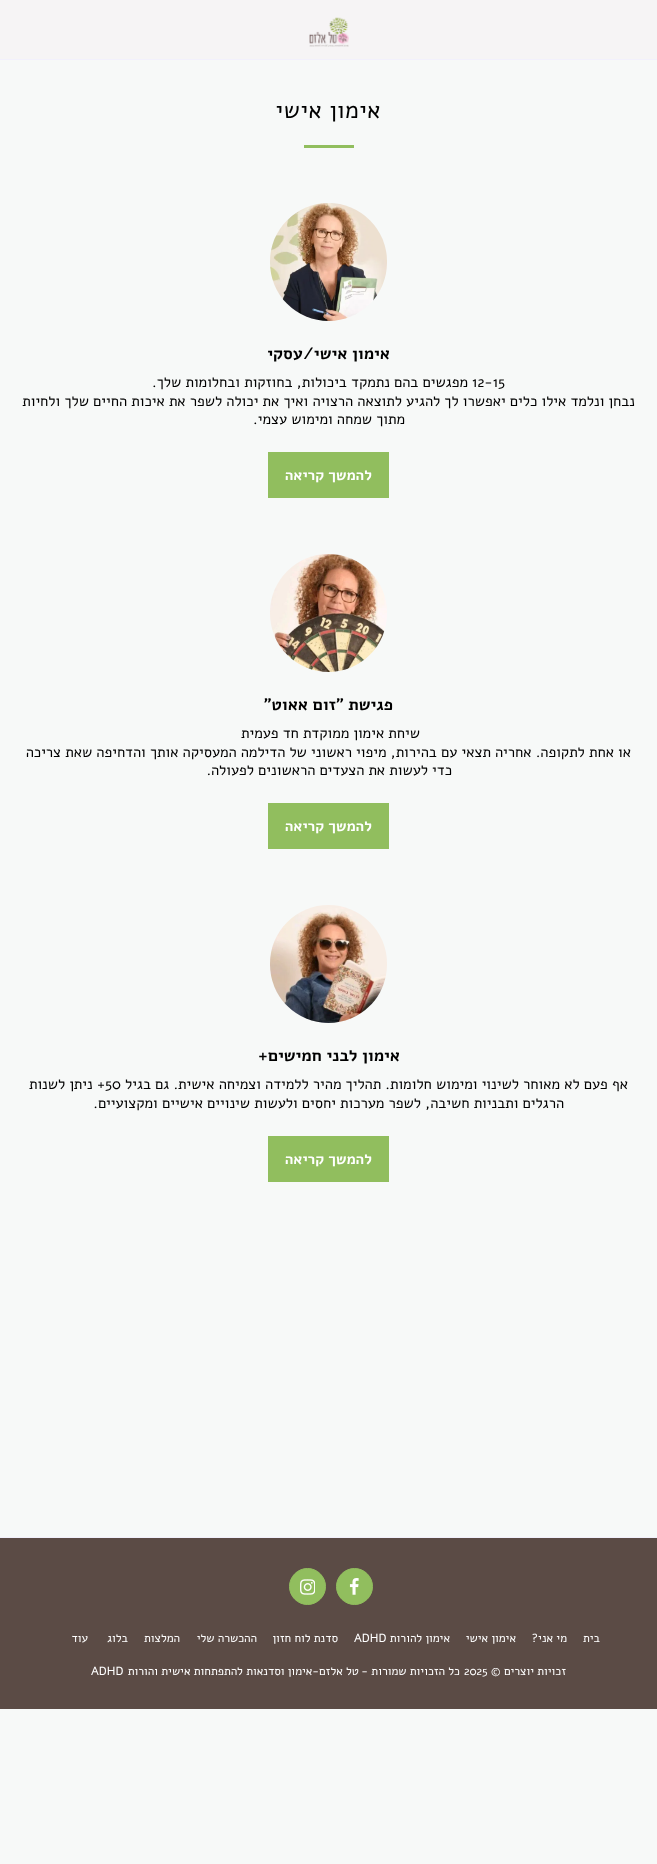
(async () => {
  const canvas = document.querySelector("canvas");
  canvas.width = 657;
  canvas.height = 1864;
  const ctx = canvas.getContext("2d");
  ctx.miterLimit = 4;
  ctx.fontKerning = "normal";
  async function loadImage(src) {
    const img = new Image();
    img.src = src;
    await img.decode();
    return img;
  }

  ctx.fillStyle = "#f7f9f8";
  ctx.fillRect(0, 0, 657, 1864);
  ctx.fillStyle = "#f6f4f5";
  ctx.fillRect(0, 0, 657, 59);
  ctx.fillStyle = "#f2f0fc";
  ctx.fillRect(0, 59, 657, 1);
  ctx.drawImage(await loadImage("img/1.png"), 309, 17, 40, 30);
  ctx.fillStyle = "#91be5e";
  ctx.fillRect(304, 145, 50, 3);
  ctx.drawImage(await loadImage("img/2.png"), 270, 203, 117, 118);
  ctx.fillRect(268, 452, 121, 46);
  ctx.drawImage(await loadImage("img/3.png"), 270, 554, 117, 118);
  ctx.fillRect(268, 803, 121, 46);
  ctx.drawImage(await loadImage("img/4.png"), 270, 905, 117, 118);
  for (const [x, y, w, h, color] of [
    [268, 1136, 121, 46, "#91be5e"],
    [0, 1537, 657, 1, "#f2f0fc"],
    [0, 1538, 657, 171, "#5b4b45"],
  ]) {
    ctx.fillStyle = color;
    ctx.fillRect(x, y, w, h);
  }
  ctx.fillStyle = "#91be5e";
  ctx.beginPath();
  ctx.arc(354.5, 1586.5, 18, 0, Math.PI * 2);
  ctx.fill();
  ctx.strokeStyle = "#91be5e";
  ctx.stroke();
  ctx.drawImage(await loadImage("img/5.png"), 349, 1578, 10, 17);
  ctx.beginPath();
  ctx.arc(307.5, 1586.5, 18, 0, Math.PI * 2);
  ctx.fill();
  ctx.stroke();
  ctx.drawImage(await loadImage("img/6.png"), 300, 1579, 15, 16);
  ctx.letterSpacing = "0.5px";
  ctx.direction = "rtl";
  ctx.font = "23.5px Alef";
  ctx.fillStyle = "#000000";
  ctx.fillText("אימון אישי", 381, 118);
  ctx.letterSpacing = "0px";
  ctx.font = "bold 16.5px Alef";
  ctx.fillText("אימון אישי/עסקי", 390, 359);
  ctx.direction = "ltr";
  ctx.font = "14.7px Alef";
  ctx.fillText("12-15", 472, 387);
  ctx.direction = "rtl";
  for (const [text, x, y] of [
    ["מפגשים בהם נתמקד ביכולות, בחוזקות ובחלומות שלך.", 468, 387],
    ["נבחן ונלמד אילו כלים יאפשרו לך להגיע לתוצאה הרצויה ואיך את יכולה לשפר את איכות החיים שלך ולחיות", 635, 406],
    ["מתוך שמחה ומימוש עצמי.", 405, 424],
  ]) {
    ctx.fillText(text, x, y);
  }
  ctx.font = "bold 14.7px Alef";
  ctx.fillStyle = "#ffffff";
  ctx.fillText("להמשך קריאה", 372, 480);
  ctx.font = "bold 16.5px Alef";
  ctx.fillStyle = "#000000";
  ctx.fillText("פגישת \"זום אאוט\"", 393, 710);
  ctx.font = "14.7px Alef";
  for (const [text, x, y] of [
    ["שיחת אימון ממוקדת חד פעמית", 420, 738],
    ["או אחת לתקופה. אחריה תצאי עם בהירות, מיפוי ראשוני של הדילמה המעסיקה אותך והדחיפה שאת צריכה", 631, 757],
    ["כדי לעשות את הצעדים הראשונים לפעולה.", 452, 775],
  ]) {
    ctx.fillText(text, x, y);
  }
  ctx.font = "bold 14.7px Alef";
  ctx.fillStyle = "#ffffff";
  ctx.fillText("להמשך קריאה", 372, 831);
  ctx.font = "bold 16.5px Alef";
  ctx.fillStyle = "#000000";
  ctx.fillText("אימון לבני חמישים+", 400, 1061);
  ctx.font = "14.7px Alef";
  ctx.fillText("אף פעם לא מאוחר לשינוי ומימוש חלומות. תהליך מהיר ללמידה וצמיחה אישית. גם בגיל", 628, 1089);
  ctx.direction = "ltr";
  ctx.fillText("50", 105, 1089);
  ctx.direction = "rtl";
  ctx.fillText("+ ניתן לשנות", 105, 1089);
  ctx.fillText("הרגלים ותבניות חשיבה, לשפר מערכות יחסים ולעשות שינויים אישיים ומקצועיים.", 564, 1108);
  ctx.font = "bold 14.7px Alef";
  ctx.fillStyle = "#ffffff";
  ctx.fillText("להמשך קריאה", 372, 1164);
  ctx.font = "11.75px Alef";
  for (const [text, x, y] of [
    ["בית", 600, 1642],
    ["מי אני?", 567, 1642],
    ["אימון אישי", 516, 1642],
    ["אימון להורות", 450, 1642],
  ]) {
    ctx.fillText(text, x, y);
  }
  ctx.direction = "ltr";
  ctx.fillText("ADHD", 354, 1642);
  ctx.direction = "rtl";
  for (const [text, x, y] of [
    ["סדנת לוח חזון", 338, 1642],
    ["ההכשרה שלי", 257, 1642],
    ["המלצות", 180, 1642],
    ["בלוג", 128, 1642],
    ["עוד", 88, 1642],
    ["זכויות יוצרים ©", 566, 1675],
  ]) {
    ctx.fillText(text, x, y);
  }
  ctx.direction = "ltr";
  ctx.fillText("2025", 464, 1675);
  ctx.direction = "rtl";
  ctx.fillText("כל הזכויות שמורות -", 460, 1675);
  ctx.fillText("טל אלזם-אימון וסדנאות להתפתחות אישית והורות", 359, 1675);
  ctx.direction = "ltr";
  ctx.fillText("ADHD", 91, 1675);
})();
